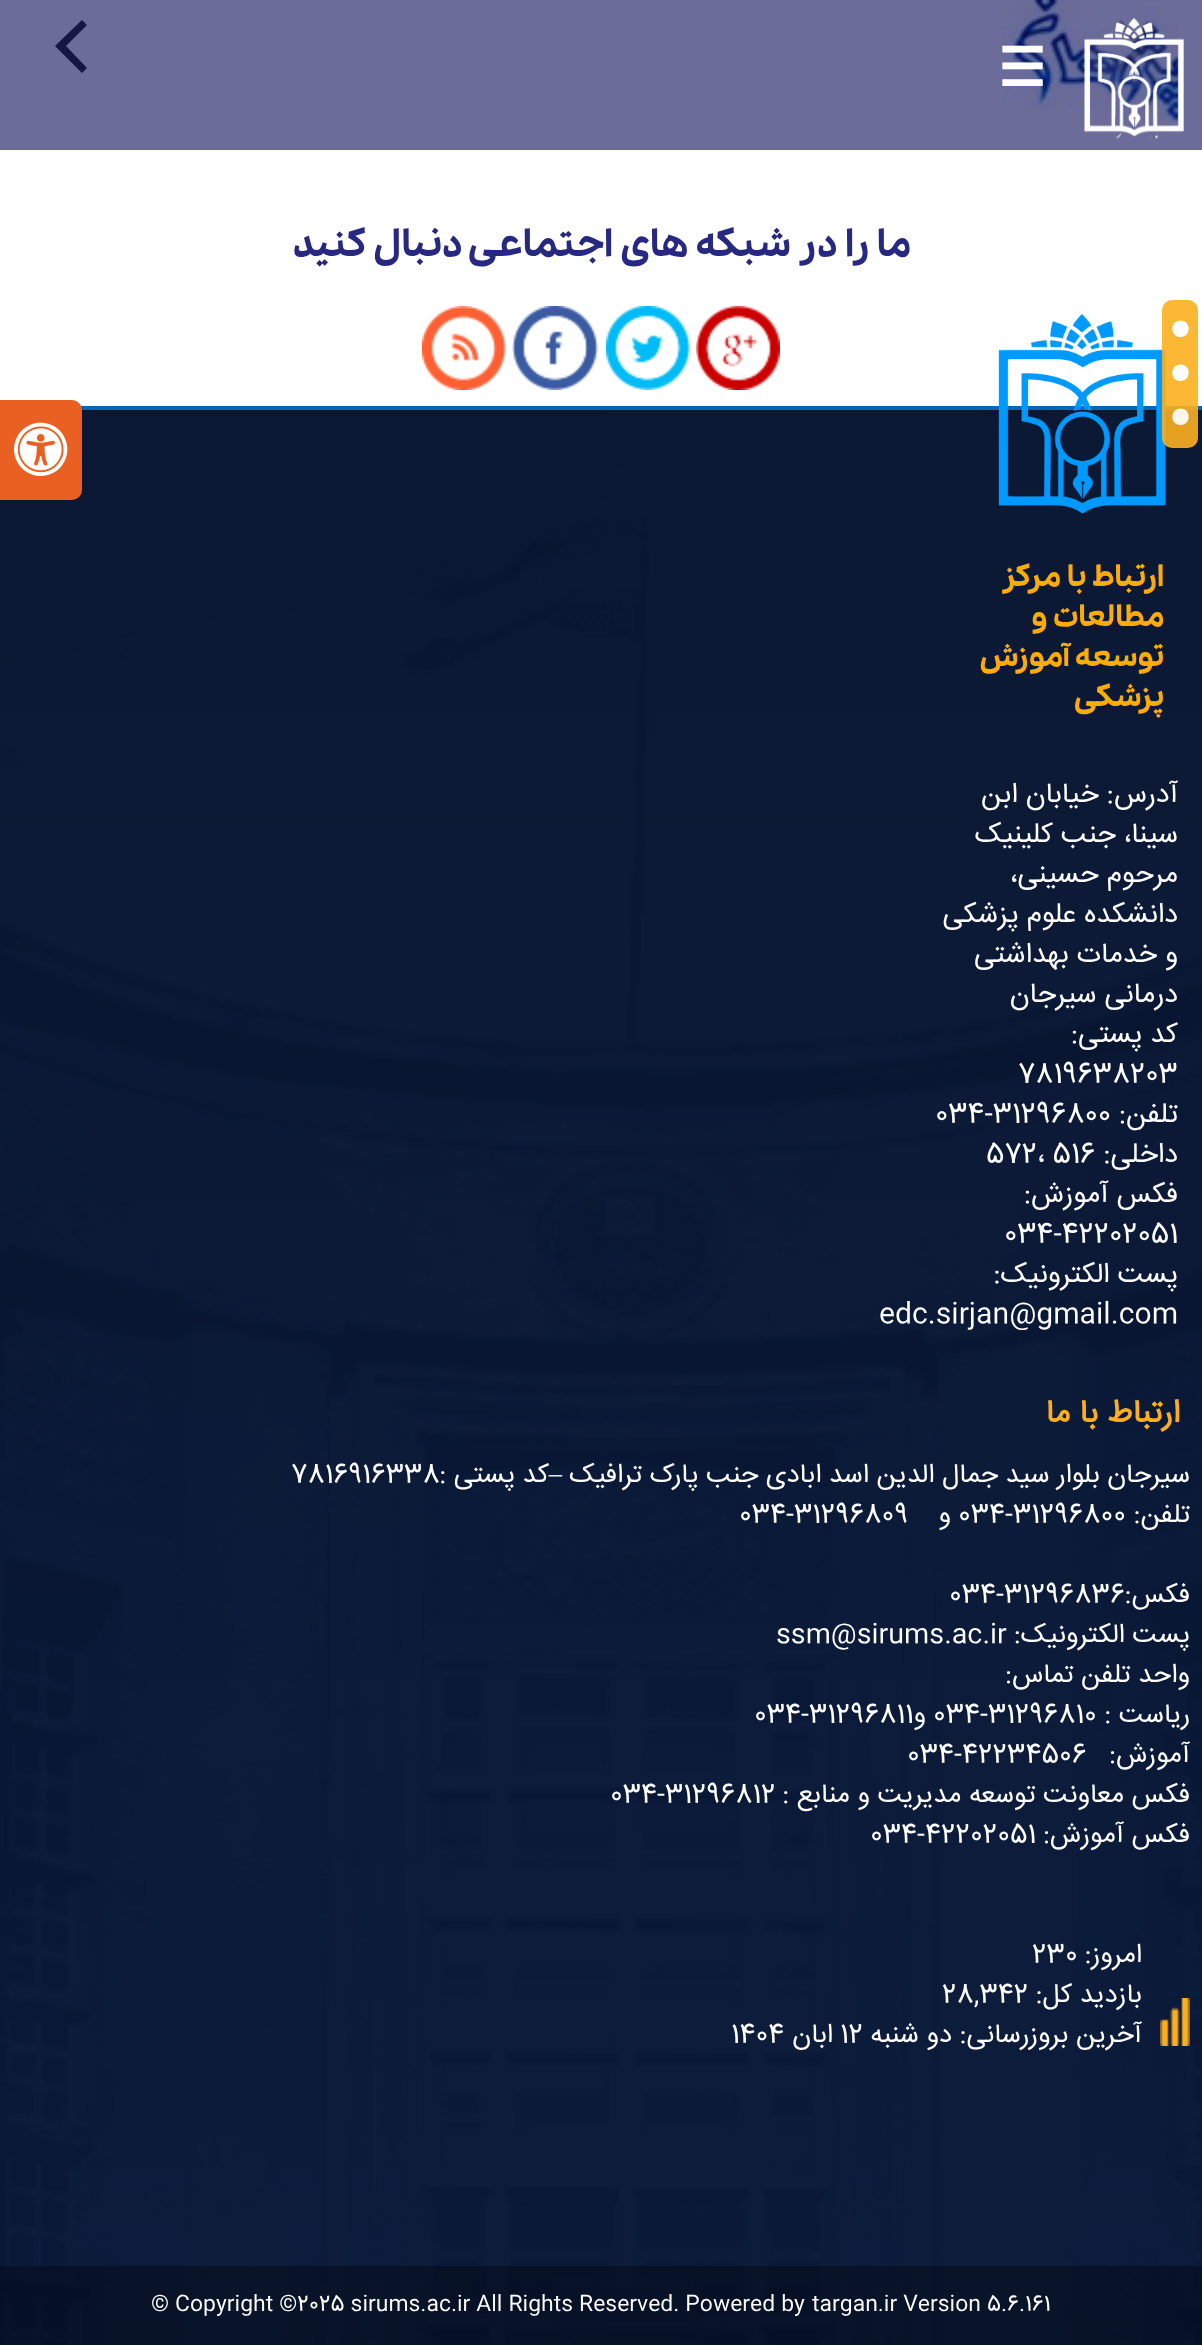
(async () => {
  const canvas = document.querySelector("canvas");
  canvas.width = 1202;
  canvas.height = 2345;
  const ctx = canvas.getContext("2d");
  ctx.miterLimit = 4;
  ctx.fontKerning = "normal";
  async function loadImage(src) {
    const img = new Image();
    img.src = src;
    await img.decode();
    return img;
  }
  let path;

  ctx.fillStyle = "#ffffff";
  ctx.fillRect(0, 0, 1202, 2345);
  ctx.fillStyle = "#6b6c9a";
  ctx.fillRect(0, 0, 1202, 150);
  ctx.drawImage(await loadImage("img/1.png"), 1002, 0, 176, 122);
  ctx.fillStyle = "rgba(107, 108, 154, 0.22)";
  ctx.beginPath();
  ctx.arc(1126, 46, 44, 0, Math.PI * 2);
  ctx.fill();
  ctx.fillStyle = "rgba(21, 22, 68, 0.3)";
  path = new Path2D("M1148 46L1121 20L1116 25L1137 46L1116 68L1121 73Z");
  ctx.fill(path);
  ctx.fillStyle = "#151644";
  path = new Path2D("M55 46L82 73L87 68L66 46L87 25L82 20Z");
  ctx.fill(path);
  ctx.drawImage(await loadImage("img/2.png"), 1084, 18, 100, 121);
  ctx.drawImage(await loadImage("img/3.png"), 696, 306, 84, 84);
  ctx.drawImage(await loadImage("img/4.png"), 606, 306, 84, 84);
  ctx.drawImage(await loadImage("img/5.png"), 512, 306, 86, 84);
  ctx.drawImage(await loadImage("img/6.png"), 422, 306, 84, 84);
  ctx.fillStyle = "#0067b8";
  ctx.fillRect(81, 406, 1121, 4);
  ctx.drawImage(await loadImage("img/7.png"), 0, 410, 1202, 1935);
  ctx.drawImage(await loadImage("img/8.png"), 998, 314, 168, 200);
  ctx.fillStyle = "rgba(252, 175, 30, 0.9)";
  ctx.beginPath();
  ctx.roundRect(1162, 300, 36, 148, 10);
  ctx.fill();
  ctx.fillStyle = "#ffffff";
  path = new Path2D("M1180.5 320.5C1191.5 320.5 1191.5 337 1180.5 337C1169.5 337 1169.5 320.5 1180.5 320.5ZM1180.5 364.5C1191.5 364.5 1191.5 381 1180.5 381C1169.5 381 1169.5 364.5 1180.5 364.5Z");
  ctx.fill(path);
  ctx.fillStyle = "rgba(255, 255, 255, 0.9)";
  path = new Path2D("M1180.5 408.5C1191.5 408.5 1191.5 425 1180.5 425C1169.5 425 1169.5 408.5 1180.5 408.5Z");
  ctx.fill(path);
  ctx.drawImage(await loadImage("img/9.png"), 1160, 1998, 30, 48);
  ctx.fillStyle = "rgba(0, 0, 0, 0.31)";
  ctx.fillRect(0, 2266, 1202, 79);
  ctx.fillStyle = "#ea6023";
  ctx.beginPath();
  ctx.roundRect(0, 400, 82, 100, [0, 10, 10, 0]);
  ctx.fill();
  ctx.drawImage(await loadImage("img/10.png"), 14, 422, 54, 54);
  ctx.font = "bold 53px DejaVu Sans";
  ctx.fillStyle = "#ffffff";
  ctx.fillText("☰", 998, 86);
  ctx.direction = "rtl";
  ctx.font = "800 37.3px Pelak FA";
  ctx.fillStyle = "#272881";
  ctx.fillText("ما را در شبکه های اجتماعی دنبال کنید", 911, 256);
  ctx.font = "800 29.25px Pelak FA";
  ctx.fillStyle = "#ffac00";
  for (const [text, x, y] of [
    ["ارتباط با مرکز", 1164, 586],
    ["مطالعات و", 1164, 626],
    ["توسعه آموزش", 1164, 666],
    ["پزشکی", 1164, 706],
  ]) {
    ctx.fillText(text, x, y);
  }
  ctx.font = "28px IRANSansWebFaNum";
  ctx.fillStyle = "#ffffff";
  for (const [text, x, y] of [
    ["آدرس: خیابان ابن", 1178, 802],
    ["سینا، جنب کلینیک", 1178, 842],
    ["مرحوم حسینی،", 1178, 882],
    ["دانشکده علوم پزشکی", 1178, 922],
    ["و خدمات بهداشتی", 1178, 962],
    ["درمانی سیرجان", 1178, 1002],
    ["کد پستی:", 1178, 1042],
  ]) {
    ctx.fillText(text, x, y);
  }
  ctx.direction = "ltr";
  ctx.fillText("7819638203", 1018, 1082);
  ctx.direction = "rtl";
  ctx.fillText("تلفن:", 1178, 1122);
  ctx.direction = "ltr";
  ctx.fillText("034-31296800", 935, 1122);
  ctx.direction = "rtl";
  ctx.fillText("داخلی:", 1178, 1162);
  ctx.direction = "ltr";
  ctx.fillText("572، 516", 986, 1162);
  ctx.direction = "rtl";
  ctx.fillText("فکس آموزش:", 1178, 1202);
  ctx.direction = "ltr";
  ctx.fillText("034-42202051", 1004, 1242);
  ctx.direction = "rtl";
  ctx.fillText("پست الکترونیک:", 1178, 1282);
  ctx.direction = "ltr";
  ctx.fillText("edc.sirjan@gmail.com", 879, 1322);
  ctx.direction = "rtl";
  ctx.font = "bold 32px IRANSansWebFaNum";
  ctx.fillStyle = "#fbae1e";
  ctx.fillText("ارتباط با ما", 1180, 1422);
  ctx.font = "26.7px IRANSansWebFaNum";
  ctx.fillStyle = "#ffffff";
  ctx.fillText("سیرجان بلوار سید جمال الدین اسد ابادی جنب پارک ترافیک", 1190, 1482);
  ctx.fillText("کد پستی :", 549, 1482);
  ctx.font = "26.7px Liberation Serif";
  ctx.fillText("–", 562, 1482);
  ctx.direction = "ltr";
  ctx.font = "26.7px IRANSansWebFaNum";
  ctx.fillText("7816916338", 291, 1482);
  ctx.direction = "rtl";
  ctx.fillText("تلفن:", 1190, 1522);
  ctx.direction = "ltr";
  ctx.fillText("034-31296800", 958, 1522);
  ctx.direction = "rtl";
  ctx.fillText("و", 951, 1522);
  ctx.direction = "ltr";
  ctx.fillText("034-31296809", 739, 1522);
  ctx.direction = "rtl";
  ctx.fillText("فکس:", 1190, 1602);
  ctx.direction = "ltr";
  ctx.fillText("034-31296836", 949, 1602);
  ctx.direction = "rtl";
  ctx.fillText("پست الکترونیک:", 1190, 1642);
  ctx.direction = "ltr";
  ctx.fillText("ssm@sirums.ac.ir", 776, 1642);
  ctx.direction = "rtl";
  ctx.fillText("واحد تلفن تماس:", 1190, 1682);
  ctx.fillText("ریاست :", 1190, 1722);
  ctx.direction = "ltr";
  ctx.fillText("034-31296810", 933, 1722);
  ctx.direction = "rtl";
  ctx.fillText("و", 926, 1722);
  ctx.direction = "ltr";
  ctx.fillText("034-31296811", 754, 1722);
  ctx.direction = "rtl";
  ctx.fillText("آموزش:", 1190, 1762);
  ctx.direction = "ltr";
  ctx.fillText("034-42234506", 907, 1762);
  ctx.direction = "rtl";
  ctx.fillText("فکس معاونت توسعه مدیریت و منابع :", 1190, 1802);
  ctx.direction = "ltr";
  ctx.fillText("034-31296812", 610, 1802);
  ctx.direction = "rtl";
  ctx.fillText("فکس آموزش:", 1190, 1842);
  ctx.direction = "ltr";
  ctx.fillText("034-42202051", 870, 1842);
  ctx.direction = "rtl";
  ctx.fillText("امروز:", 1142, 1962);
  ctx.direction = "ltr";
  ctx.fillText("230", 1032, 1962);
  ctx.direction = "rtl";
  ctx.fillText("بازدید کل:", 1142, 2002);
  ctx.direction = "ltr";
  ctx.fillText("28,342", 942, 2002);
  ctx.direction = "rtl";
  ctx.fillText("آخرین بروزرسانی:", 1142, 2042);
  ctx.fillText("دو شنبه", 952, 2042);
  ctx.direction = "ltr";
  ctx.fillText("12", 840, 2042);
  ctx.direction = "rtl";
  ctx.fillText("ابان", 833, 2042);
  ctx.direction = "ltr";
  ctx.fillText("1404", 731, 2042);
  ctx.font = "21.3px IRANSansWebFaNum";
  ctx.fillText("targan.ir Version 5.6.161", 812, 2310);
  ctx.fillText("© Copyright ©2025 sirums.ac.ir All Rights Reserved. Powered by", 151, 2310);
})();
